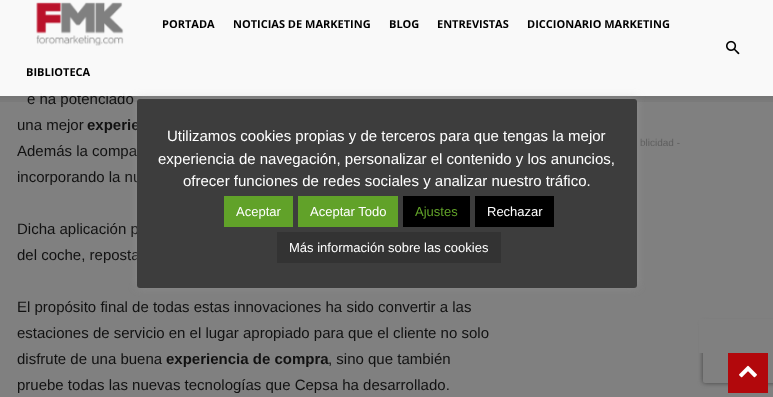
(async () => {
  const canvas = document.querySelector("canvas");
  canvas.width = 773;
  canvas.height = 397;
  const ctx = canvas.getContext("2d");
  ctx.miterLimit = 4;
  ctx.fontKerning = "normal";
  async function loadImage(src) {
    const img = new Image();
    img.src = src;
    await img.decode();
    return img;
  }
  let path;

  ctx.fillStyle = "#808080";
  ctx.fillRect(0, 0, 773, 397);
  ctx.save();
  path = new Path2D("M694 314H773V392H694ZM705 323H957C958 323 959 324 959 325V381C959 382 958 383 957 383H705C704 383 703 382 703 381V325C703 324 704 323 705 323Z");
  ctx.clip(path, "evenodd");
  ctx.fillStyle = "#404040";
  ctx.filter = "blur(2.5px)";
  ctx.beginPath();
  ctx.roundRect(703, 323, 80, 60, 2);
  ctx.fill();
  ctx.filter = "none";
  ctx.restore();
  ctx.fillRect(699, 319, 74, 34);
  ctx.fillStyle = "#b2080c";
  ctx.fillRect(728, 353, 40, 40);
  ctx.drawImage(await loadImage("img/4.png"), 739, 365, 18, 13);
  ctx.font = "15px Liberation Sans";
  ctx.fillStyle = "#111111";
  ctx.fillText("e ha potenciado", 27, 104);
  ctx.fillStyle = "rgba(255, 255, 255, 0.95)";
  ctx.fillRect(0, 0, 773, 96);
  ctx.drawImage(await loadImage("img/2.png"), 726, 40, 14, 15);
  ctx.font = "bold 11px Open Sans";
  ctx.fillStyle = "#000000";
  for (const [text, x, y] of [
    ["BIBLIOTECA", 26, 76],
    ["DICCIONARIO MARKETING", 527, 28],
    ["ENTREVISTAS", 437, 28],
    ["BLOG", 389, 28],
    ["NOTICIAS DE MARKETING", 233, 28],
    ["PORTADA", 162, 28],
  ]) {
    ctx.fillText(text, x, y);
  }
  ctx.drawImage(await loadImage("img/1.png"), 36, 2, 88, 44);
  ctx.drawImage(await loadImage("img/3.png"), 0, 96, 773, 6);
  ctx.font = "15px Liberation Sans";
  ctx.fillStyle = "#111111";
  ctx.fillText("una mejor", 17, 130);
  ctx.font = "bold 15px Liberation Sans";
  ctx.fillText("experie", 87, 130);
  ctx.font = "15px Liberation Sans";
  for (const [text, x, y] of [
    ["Además la compa", 17, 156],
    ["incorporando la nu", 17, 182],
    ["Dicha aplicación p", 17, 234],
    ["del coche, reposta", 17, 260],
    ["El propósito final de todas estas innovaciones ha sido convertir a las", 17, 312],
    ["estaciones de servicio en el lugar apropiado para que el cliente no solo", 17, 338],
    ["disfrute de una buena", 17, 364],
  ]) {
    ctx.fillText(text, x, y);
  }
  ctx.font = "bold 15px Liberation Sans";
  ctx.fillText("experiencia de compra", 166, 364);
  ctx.font = "15px Liberation Sans";
  ctx.fillText(", sino que también", 328, 364);
  ctx.fillText("pruebe todas las nuevas tecnologías que Cepsa ha desarrollado.", 17, 390);
  ctx.font = "10px Liberation Sans";
  ctx.fillStyle = "#5e5e5e";
  ctx.fillText("blicidad -", 640, 146);
  ctx.fillStyle = "rgba(172, 171, 171, 0.3)";
  ctx.filter = "blur(5px)";
  ctx.beginPath();
  ctx.roundRect(137, 98, 500, 189, 3);
  ctx.fill();
  ctx.filter = "none";
  ctx.fillStyle = "#3d3d3d";
  ctx.beginPath();
  ctx.roundRect(137, 99, 500, 189, 3);
  ctx.fill();
  ctx.font = "15px Liberation Sans";
  ctx.fillStyle = "#ffffff";
  for (const [text, x, y] of [
    ["Utilizamos cookies propias y de terceros para que tengas la mejor", 167, 141],
    ["experiencia de navegación, personalizar el contenido y los anuncios,", 158, 164],
    ["ofrecer funciones de redes sociales y analizar nuestro tráfico.", 183, 186],
  ]) {
    ctx.fillText(text, x, y);
  }
  ctx.fillStyle = "#61a229";
  ctx.fillRect(224, 196, 69, 31);
  ctx.font = "13px Liberation Sans";
  ctx.fillStyle = "#ffffff";
  ctx.fillText("Aceptar", 236, 216);
  ctx.fillStyle = "#61a229";
  ctx.fillRect(298, 196, 100, 31);
  ctx.fillStyle = "#ffffff";
  ctx.fillText("Aceptar Todo", 310, 216);
  ctx.fillStyle = "#000000";
  ctx.fillRect(403, 196, 67, 31);
  ctx.fillStyle = "#62a329";
  ctx.fillText("Ajustes", 415, 216);
  ctx.fillStyle = "#000000";
  ctx.fillRect(475, 196, 79, 31);
  ctx.fillStyle = "#ffffff";
  ctx.fillText("Rechazar", 487, 216);
  ctx.fillStyle = "#333333";
  ctx.fillRect(277, 232, 224, 31);
  ctx.fillStyle = "#ffffff";
  ctx.fillText("Más información sobre las cookies", 289, 252);
})();
